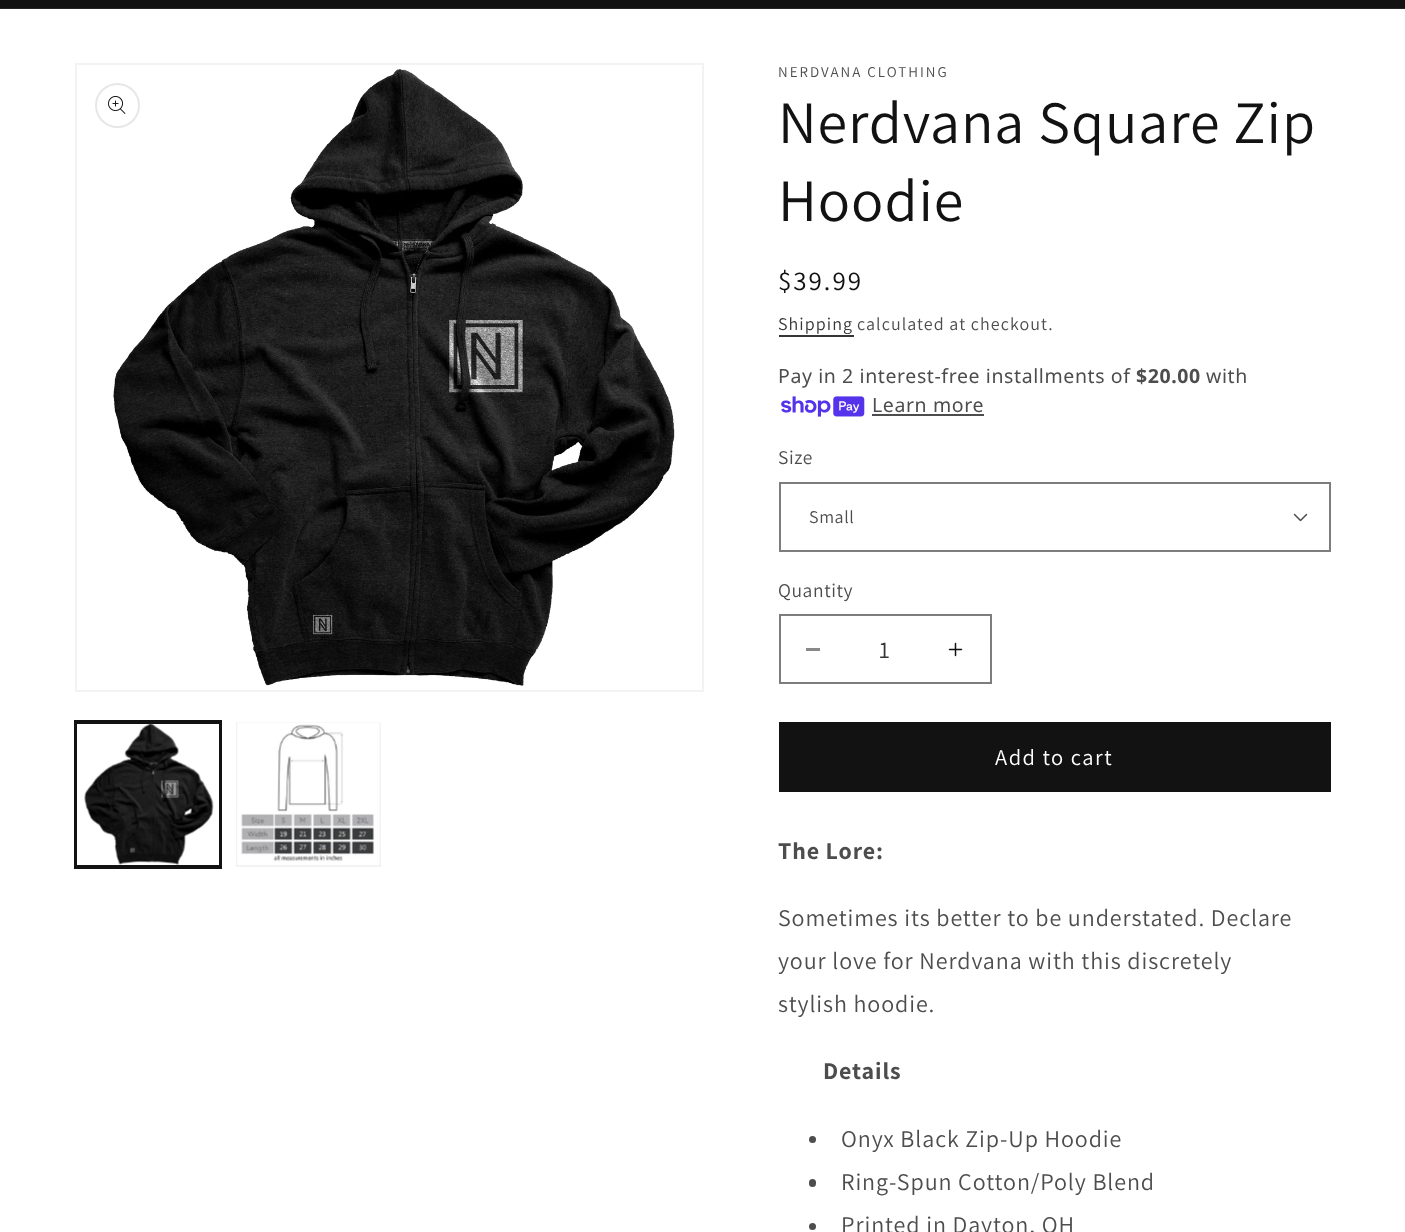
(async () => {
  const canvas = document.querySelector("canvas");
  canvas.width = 1405;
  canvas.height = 1232;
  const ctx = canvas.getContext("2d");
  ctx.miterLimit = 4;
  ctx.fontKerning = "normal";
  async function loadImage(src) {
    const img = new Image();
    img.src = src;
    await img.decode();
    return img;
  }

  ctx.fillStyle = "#ffffff";
  ctx.fillRect(0, 0, 1405, 1232);
  ctx.fillStyle = "#121212";
  ctx.fillRect(0, 0, 1405, 8);
  ctx.fillStyle = "#252525";
  ctx.fillRect(0, 8, 1405, 1);
  ctx.strokeStyle = "#f3f3f3";
  ctx.lineWidth = 2;
  ctx.strokeRect(76, 64, 627, 627);
  ctx.drawImage(await loadImage("img/1.png"), 113, 69, 562, 617);
  ctx.beginPath();
  ctx.arc(117.5, 105.5, 21.5, 0, Math.PI * 2);
  ctx.strokeStyle = "#e7e7e7";
  ctx.stroke();
  ctx.drawImage(await loadImage("img/2.png"), 108, 96, 18, 18);
  ctx.strokeStyle = "#121212";
  ctx.strokeRect(75, 721, 146, 147);
  ctx.strokeRect(76, 723, 144, 143);
  ctx.drawImage(await loadImage("img/3.png"), 84, 723, 130, 142);
  ctx.strokeStyle = "#f3f3f3";
  ctx.strokeRect(237, 723, 143, 143);
  ctx.drawImage(await loadImage("img/4.png"), 237, 722, 143, 143);
  ctx.fillStyle = "#363636";
  ctx.fillRect(779, 335, 75, 2);
  ctx.drawImage(await loadImage("img/5.png"), 781, 396, 84, 21);
  ctx.fillStyle = "#4d4d4d";
  ctx.fillRect(872, 414, 112, 2);
  ctx.drawImage(await loadImage("img/6.png"), 1293, 513, 15, 9);
  ctx.strokeStyle = "#7d7d7d";
  ctx.strokeRect(780, 483, 550, 68);
  ctx.fillStyle = "#898989";
  ctx.fillRect(806, 648, 14, 3);
  ctx.drawImage(await loadImage("img/7.png"), 948, 642, 15, 15);
  ctx.strokeRect(780, 615, 211, 68);
  ctx.fillStyle = "#121212";
  ctx.fillRect(779, 722, 552, 70);
  ctx.fillStyle = "#4d4d4d";
  ctx.beginPath();
  ctx.arc(812.5, 1139.5, 3.5, 0, Math.PI * 2);
  ctx.fill();
  ctx.beginPath();
  ctx.roundRect(809, 1179, 7, 8, 3.5);
  ctx.fill();
  ctx.beginPath();
  ctx.arc(812.5, 1226.5, 3.5, 0, Math.PI * 2);
  ctx.fill();
  ctx.letterSpacing = "2px";
  ctx.font = "15px Assistant";
  ctx.fillText("NERDVANA CLOTHING", 778, 77);
  ctx.letterSpacing = "0.9px";
  ctx.font = "60px Assistant";
  ctx.fillStyle = "#121212";
  ctx.fillText("Nerdvana Square Zip", 778, 143);
  ctx.fillText("Hoodie", 778, 221);
  ctx.letterSpacing = "2px";
  ctx.font = "27px Assistant";
  ctx.fillText("$39.99", 778, 290);
  ctx.letterSpacing = "1.05px";
  ctx.font = "18px Assistant";
  ctx.fillStyle = "#363636";
  ctx.fillText("Shipping", 778, 330);
  ctx.fillStyle = "#4d4d4d";
  ctx.fillText("calculated at checkout.", 857, 330);
  ctx.letterSpacing = "0.6px";
  ctx.font = "19.5px Noto Sans";
  ctx.fillText("Pay in 2 interest-free installments of", 778, 383);
  ctx.font = "bold 19.5px Noto Sans";
  ctx.fillText("$20.00", 1136, 383);
  ctx.font = "19.5px Noto Sans";
  ctx.fillText("with", 1206, 383);
  ctx.fillText("Learn more", 872, 412);
  ctx.font = "19.5px Assistant";
  ctx.fillText("Size", 778, 464);
  ctx.font = "18px Assistant";
  ctx.fillText("Small", 809, 523);
  ctx.font = "19.5px Assistant";
  ctx.fillText("Quantity", 778, 597);
  ctx.letterSpacing = "0px";
  ctx.font = "24px Assistant";
  ctx.fillStyle = "#363636";
  ctx.fillText("1", 879, 658);
  ctx.letterSpacing = "1.5px";
  ctx.font = "22.5px Assistant";
  ctx.fillStyle = "#ffffff";
  ctx.fillText("Add to cart", 995, 765);
  ctx.letterSpacing = "0.9px";
  ctx.font = "bold 24px Assistant";
  ctx.fillStyle = "#4d4d4d";
  ctx.fillText("The Lore:", 778, 859);
  ctx.font = "24px Assistant";
  for (const [text, x, y] of [
    ["Sometimes its better to be understated. Declare", 778, 926],
    ["your love for Nerdvana with this discretely", 778, 969],
    ["stylish hoodie.", 778, 1012],
  ]) {
    ctx.fillText(text, x, y);
  }
  ctx.font = "bold 24px Assistant";
  ctx.fillText("Details", 823, 1079);
  ctx.font = "24px Assistant";
  for (const [text, x, y] of [
    ["Onyx Black Zip-Up Hoodie", 841, 1147],
    ["Ring-Spun Cotton/Poly Blend", 841, 1190],
    ["Printed in Dayton, OH", 841, 1233],
  ]) {
    ctx.fillText(text, x, y);
  }
})();
